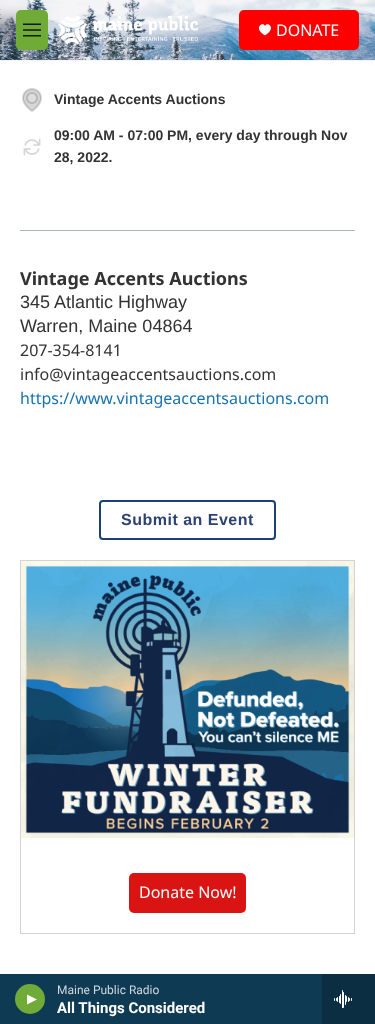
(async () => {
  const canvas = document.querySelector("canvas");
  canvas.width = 375;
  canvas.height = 1024;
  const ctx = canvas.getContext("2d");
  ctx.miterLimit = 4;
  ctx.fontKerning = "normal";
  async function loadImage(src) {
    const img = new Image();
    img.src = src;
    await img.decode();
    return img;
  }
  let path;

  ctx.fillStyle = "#ffffff";
  ctx.fillRect(0, 0, 375, 1024);
  ctx.fillStyle = "#f5f5f5";
  ctx.fillRect(0, 60, 375, 1);
  ctx.drawImage(await loadImage("img/1.png"), 0, 0, 375, 60);
  ctx.fillStyle = "#70ab37";
  ctx.beginPath();
  ctx.roundRect(16, 10, 32, 40, 5);
  ctx.fill();
  ctx.drawImage(await loadImage("img/2.png"), 23, 23, 18, 14);
  ctx.drawImage(await loadImage("img/3.png"), 58, 16, 140, 29);
  ctx.fillStyle = "#ff0000";
  ctx.beginPath();
  ctx.roundRect(239, 10, 120, 40, 5);
  ctx.fill();
  ctx.fillStyle = "#ffffff";
  path = new Path2D("M265 26C263 21 252.5 28 265 35.5C277.5 28 267 21 265 26Z");
  ctx.fill(path);
  ctx.fillStyle = "#0f3a53";
  ctx.fillRect(0, 974, 322, 50);
  ctx.fillStyle = "#70ab37";
  ctx.beginPath();
  ctx.arc(30, 999, 15, 0, Math.PI * 2);
  ctx.fill();
  ctx.fillStyle = "#ffffff";
  path = new Path2D("M27 994.5L37 999.5L27 1004.5Z");
  ctx.fill(path);
  ctx.fillStyle = "#0c2e42";
  ctx.fillRect(322, 974, 53, 50);
  ctx.drawImage(await loadImage("img/4.png"), 334, 990, 18, 18);
  ctx.fillStyle = "#aab7b8";
  ctx.fillRect(20, 230, 335, 1);
  ctx.drawImage(await loadImage("img/5.png"), 22, 88, 20, 24);
  ctx.drawImage(await loadImage("img/6.png"), 23, 138, 18, 18);
  ctx.beginPath();
  ctx.roundRect(100, 501, 175, 38, 3);
  ctx.strokeStyle = "#194173";
  ctx.lineWidth = 2;
  ctx.stroke();
  ctx.strokeStyle = "#d3d3d3";
  ctx.lineWidth = 1;
  ctx.strokeRect(20.5, 560.5, 334, 373);
  ctx.drawImage(await loadImage("img/7.png"), 21, 561, 333, 277);
  ctx.fillStyle = "#da1313";
  ctx.beginPath();
  ctx.roundRect(129, 873, 117, 40, 5);
  ctx.fill();
  ctx.font = "16px Noto Sans";
  ctx.fillStyle = "#ffffff";
  ctx.fillText("DONATE", 276, 36);
  ctx.font = "12px Roboto";
  ctx.fillStyle = "#cfd8dd";
  ctx.fillText("Maine Public Radio", 57, 994);
  ctx.font = "bold 15px Roboto";
  ctx.fillStyle = "#ffffff";
  ctx.fillText("All Things Considered", 57, 1013);
  ctx.font = "bold 14px Liberation Sans";
  ctx.fillStyle = "#333333";
  for (const [text, x, y] of [
    ["Vintage Accents Auctions", 54, 104],
    ["09:00 AM - 07:00 PM, every day through Nov", 54, 140],
    ["28, 2022.", 54, 162],
  ]) {
    ctx.fillText(text, x, y);
  }
  ctx.font = "bold 18px Noto Sans";
  ctx.fillText("Vintage Accents Auctions", 20, 285);
  ctx.font = "18px Liberation Sans";
  ctx.fillText("345 Atlantic Highway", 20, 308);
  ctx.fillText("Warren, Maine 04864", 20, 332);
  ctx.font = "16px Noto Sans";
  ctx.fillText("207-354-8141", 20, 356);
  ctx.fillText("info@vintageaccentsauctions.com", 20, 380);
  ctx.fillStyle = "#1772b0";
  ctx.fillText("https://www.vintageaccentsauctions.com", 20, 404);
  ctx.letterSpacing = "0.5px";
  ctx.font = "bold 16px Liberation Sans";
  ctx.fillStyle = "#2c4273";
  ctx.fillText("Submit an Event", 121, 525);
  ctx.letterSpacing = "0px";
  ctx.font = "16px Noto Sans";
  ctx.fillStyle = "#ffffff";
  ctx.fillText("Donate Now!", 139, 898);
})();
